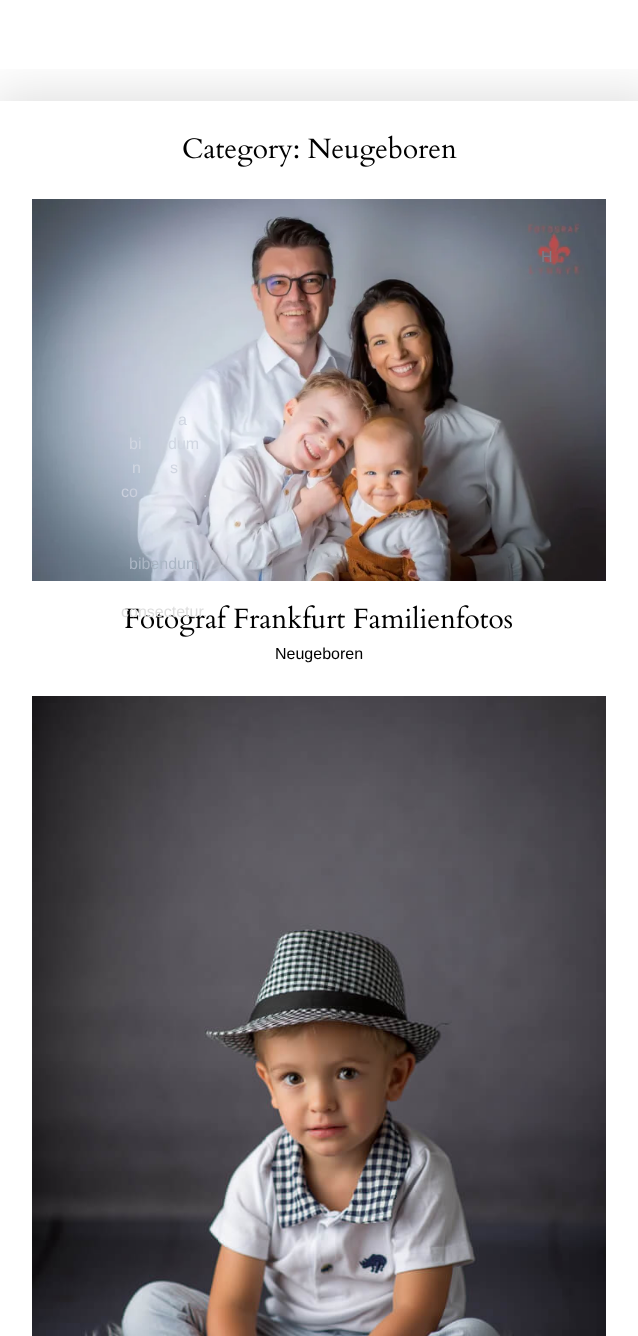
(async () => {
  const canvas = document.querySelector("canvas");
  canvas.width = 638;
  canvas.height = 1336;
  const ctx = canvas.getContext("2d");
  ctx.miterLimit = 4;
  ctx.fontKerning = "normal";
  async function loadImage(src) {
    const img = new Image();
    img.src = src;
    await img.decode();
    return img;
  }

  ctx.fillStyle = "#ffffff";
  ctx.fillRect(0, 0, 638, 1336);
  ctx.save();
  ctx.beginPath();
  ctx.rect(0, 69, 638, 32);
  ctx.clip();
  ctx.fillStyle = "rgba(0, 0, 0, 0.12)";
  ctx.filter = "blur(24.5px)";
  ctx.beginPath();
  ctx.rect(-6, 93, 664, 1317);
  ctx.fill();
  ctx.filter = "none";
  ctx.restore();
  ctx.drawImage(await loadImage("img/1.png"), 183, 135, 274, 32);
  ctx.drawImage(await loadImage("img/2.png"), 32, 199, 574, 382);
  ctx.drawImage(await loadImage("img/3.png"), 125, 605, 387, 32);
  ctx.drawImage(await loadImage("img/4.png"), 32, 696, 574, 640);
  ctx.font = "16px Liberation Sans";
  ctx.fillStyle = "#7b7c88";
  ctx.fillText("H", 541, 262);
  ctx.fillStyle = "#d0d6e1";
  for (const [text, x, y] of [
    ["a", 178, 425],
    ["bi", 129, 449],
    ["dum", 168, 449],
    ["n", 132, 473],
    ["s", 170, 473],
  ]) {
    ctx.fillText(text, x, y);
  }
  ctx.fillStyle = "#cbd0dd";
  ctx.fillText("co", 121, 497);
  ctx.fillText(".", 203, 497);
  ctx.fillStyle = "#abb6c4";
  ctx.fillText("bibendum", 129, 569);
  ctx.fillStyle = "#dddddd";
  ctx.fillText("consectetur.", 121, 617);
  ctx.fillStyle = "#000000";
  ctx.fillText("Neugeboren", 275, 659);
})();
